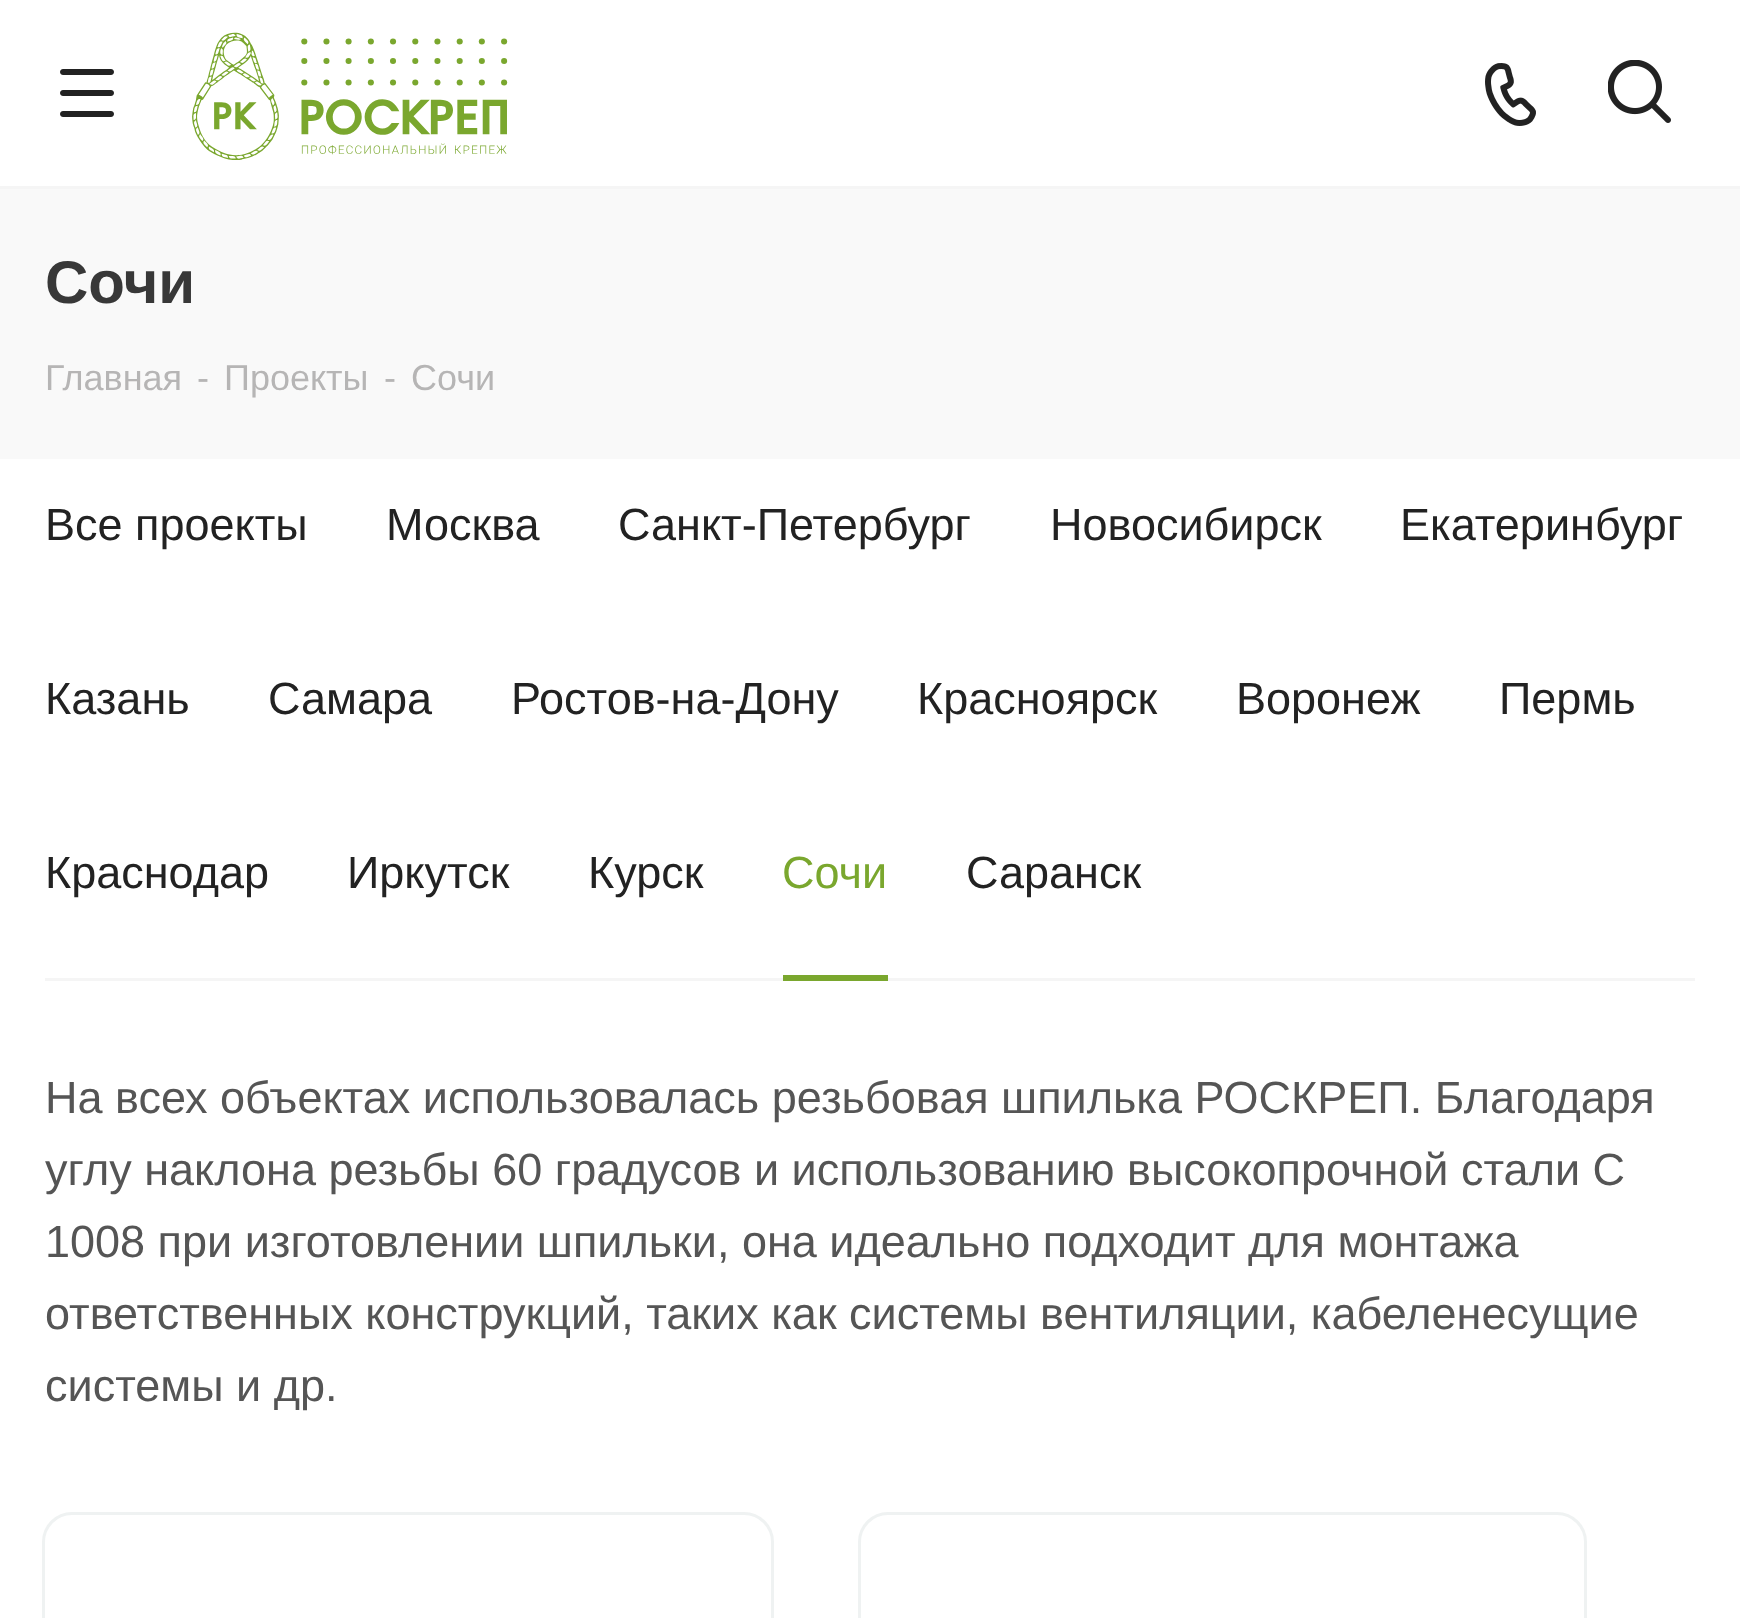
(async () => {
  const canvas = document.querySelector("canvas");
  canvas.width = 1740;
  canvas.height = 1618;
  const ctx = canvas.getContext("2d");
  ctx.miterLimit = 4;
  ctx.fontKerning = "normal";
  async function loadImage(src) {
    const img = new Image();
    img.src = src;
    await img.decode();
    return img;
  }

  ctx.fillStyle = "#ffffff";
  ctx.fillRect(0, 0, 1740, 1618);
  ctx.fillStyle = "#f5f5f5";
  ctx.fillRect(0, 186, 1740, 3);
  ctx.drawImage(await loadImage("img/1.png"), 60, 69, 54, 48);
  ctx.drawImage(await loadImage("img/2.png"), 192, 32, 316, 128);
  ctx.drawImage(await loadImage("img/3.png"), 1485, 63, 51, 63);
  ctx.drawImage(await loadImage("img/4.png"), 1608, 60, 63, 63);
  for (const [x, y, w, h, color] of [
    [0, 189, 1740, 270, "#f9f9f9"],
    [45, 978, 1650, 3, "#f5f5f5"],
    [783, 975, 105, 6, "#7aa72e"],
  ]) {
    ctx.fillStyle = color;
    ctx.fillRect(x, y, w, h);
  }
  ctx.beginPath();
  ctx.roundRect(43.5, 1513.5, 729, 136, 28.5);
  ctx.strokeStyle = "#eff2f2";
  ctx.lineWidth = 3;
  ctx.stroke();
  ctx.beginPath();
  ctx.roundRect(859.5, 1513.5, 726, 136, 28.5);
  ctx.stroke();
  ctx.font = "bold 60px Liberation Sans";
  ctx.fillStyle = "#383838";
  ctx.fillText("Сочи", 45, 303);
  ctx.font = "36px Liberation Sans";
  ctx.fillStyle = "#b6b5b5";
  for (const [text, x, y] of [
    ["Главная", 45, 390],
    ["-", 197, 390],
    ["Проекты", 224, 390],
    ["-", 384, 390],
    ["Сочи", 411, 390],
  ]) {
    ctx.fillText(text, x, y);
  }
  ctx.font = "45px Liberation Sans";
  ctx.fillStyle = "#222222";
  for (const [text, x, y] of [
    ["Все проекты", 45, 540],
    ["Москва", 386, 540],
    ["Санкт-Петербург", 618, 540],
    ["Новосибирск", 1050, 540],
    ["Екатеринбург", 1400, 540],
    ["Казань", 45, 714],
    ["Самара", 268, 714],
    ["Ростов-на-Дону", 511, 714],
    ["Красноярск", 917, 714],
    ["Воронеж", 1236, 714],
    ["Пермь", 1499, 714],
    ["Краснодар", 45, 888],
    ["Иркутск", 347, 888],
    ["Курск", 588, 888],
  ]) {
    ctx.fillText(text, x, y);
  }
  ctx.fillStyle = "#7aa72e";
  ctx.fillText("Сочи", 782, 888);
  ctx.fillStyle = "#222222";
  ctx.fillText("Саранск", 966, 888);
  ctx.fillStyle = "#555555";
  for (const [text, x, y] of [
    ["На всех объектах использовалась резьбовая шпилька РОСКРЕП. Благодаря", 45, 1113],
    ["углу наклона резьбы 60 градусов и использованию высокопрочной стали С", 45, 1185],
    ["1008 при изготовлении шпильки, она идеально подходит для монтажа", 45, 1257],
    ["ответственных конструкций, таких как системы вентиляции, кабеленесущие", 45, 1329],
    ["системы и др.", 45, 1401],
  ]) {
    ctx.fillText(text, x, y);
  }
})();
